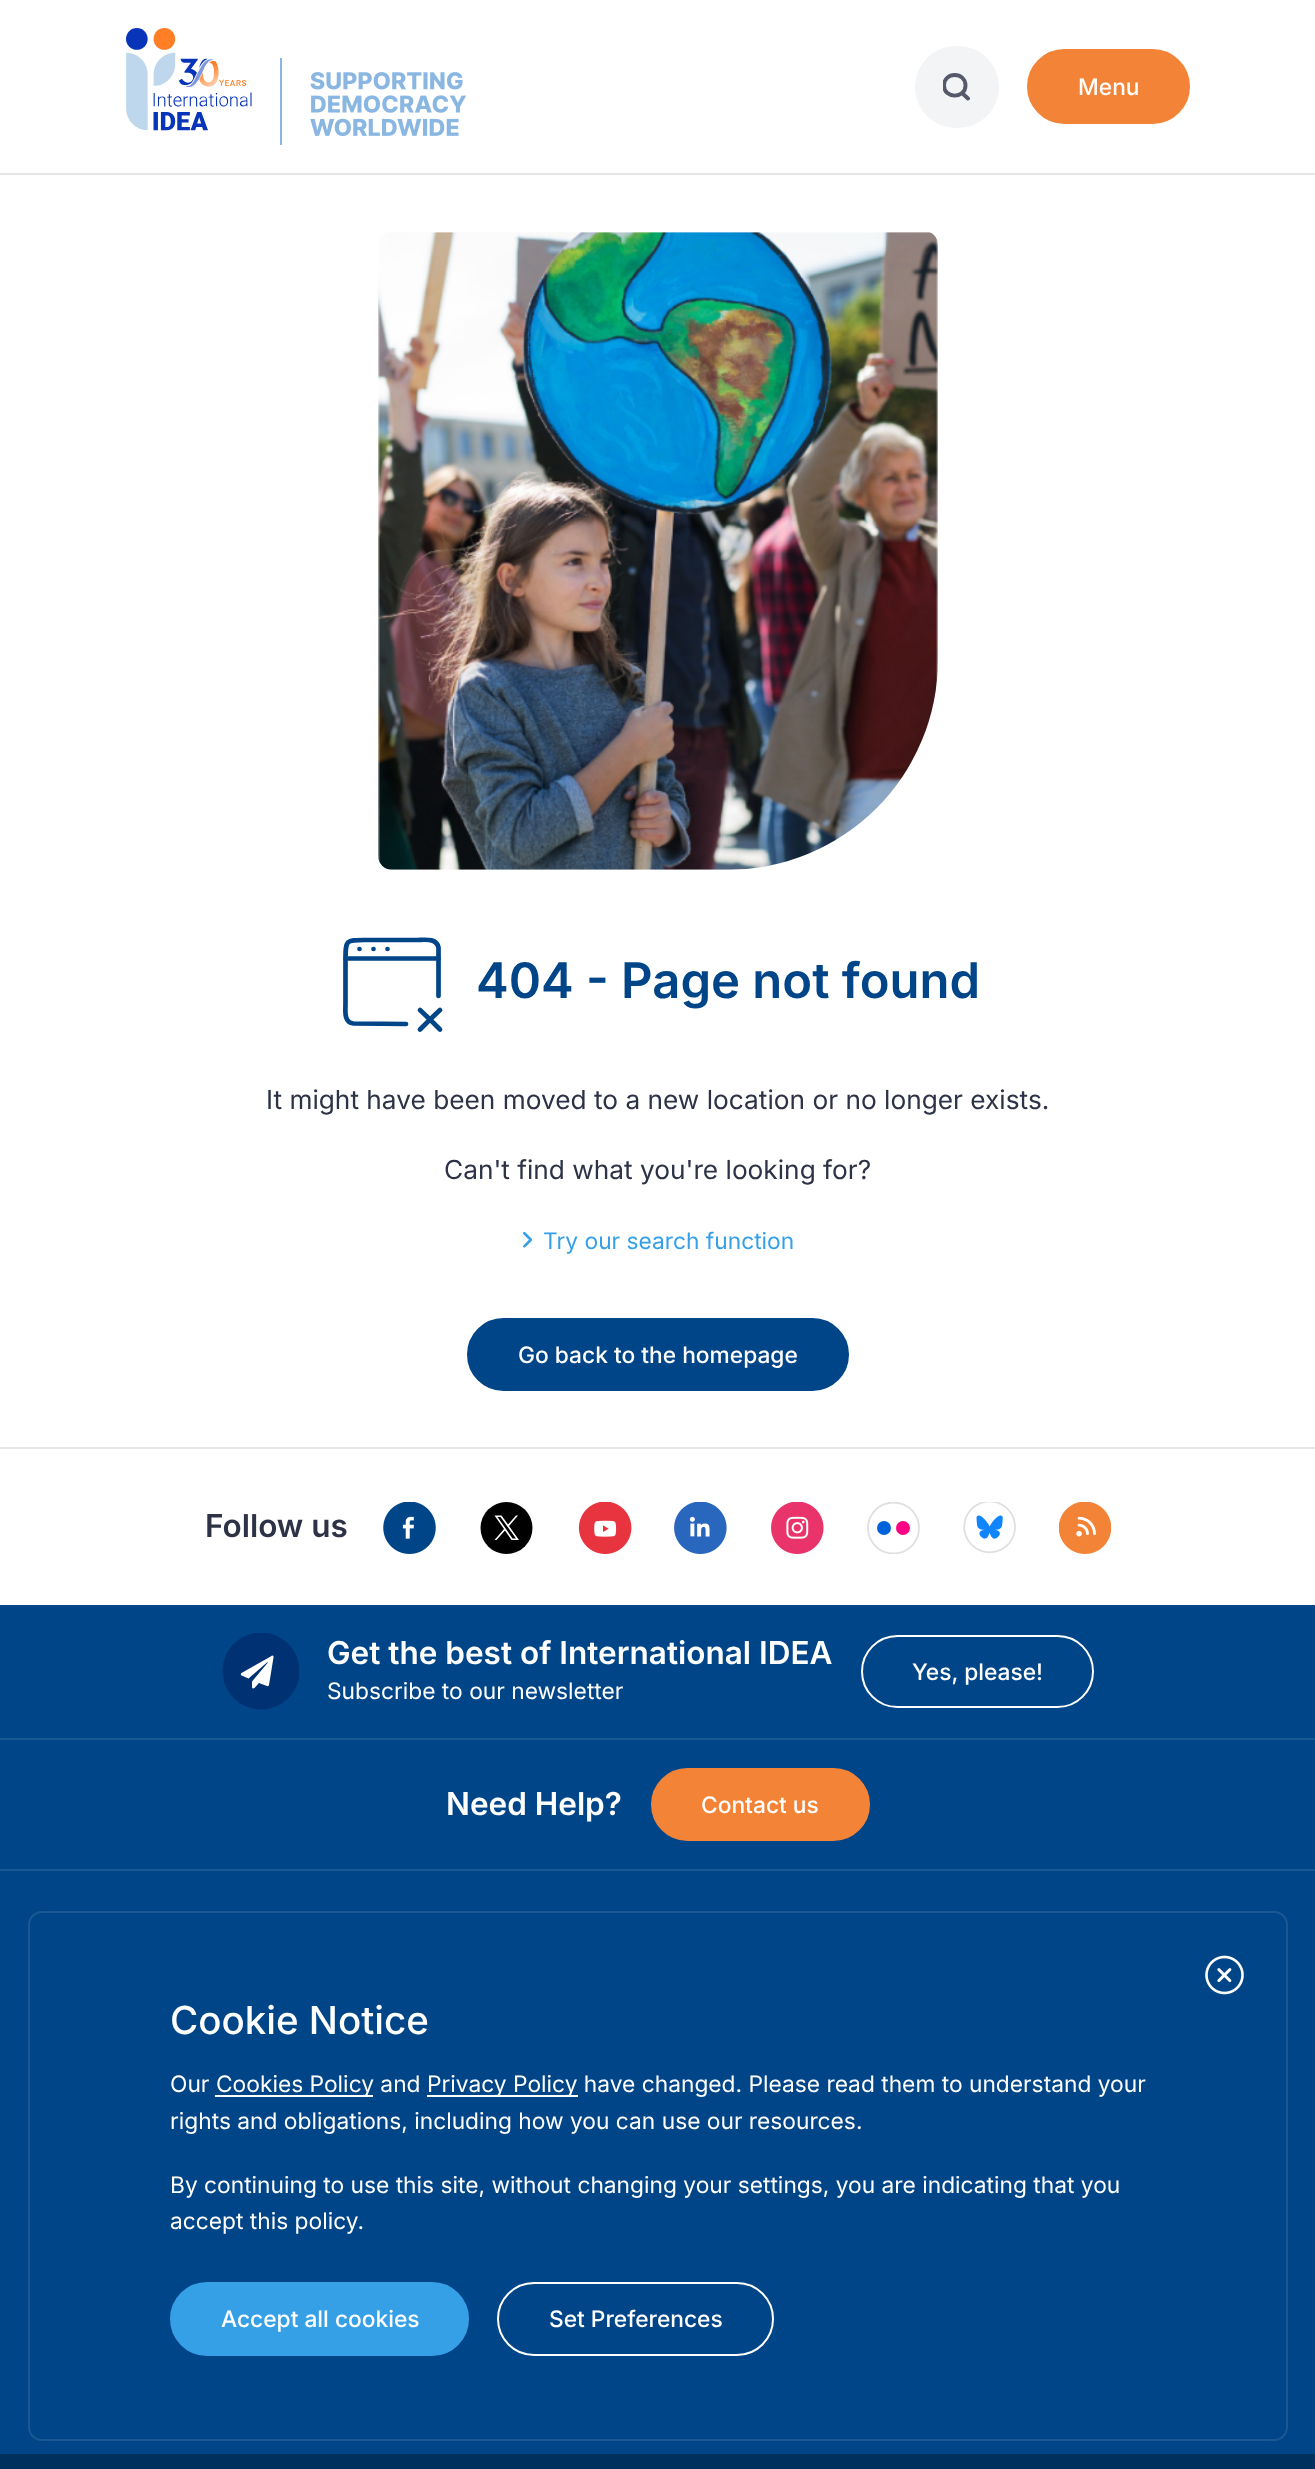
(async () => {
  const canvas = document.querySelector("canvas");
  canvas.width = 1315;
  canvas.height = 2469;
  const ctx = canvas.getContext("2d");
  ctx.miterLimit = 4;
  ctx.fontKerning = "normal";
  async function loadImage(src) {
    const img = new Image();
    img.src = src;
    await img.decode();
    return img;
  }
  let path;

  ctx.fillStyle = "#ffffff";
  ctx.fillRect(0, 0, 1315, 2469);
  ctx.fillStyle = "#e4e6e8";
  ctx.fillRect(0, 173, 1315, 2);
  ctx.drawImage(await loadImage("img/1.png"), 126, 28, 126, 103);
  ctx.fillStyle = "#8ab7e2";
  ctx.fillRect(280, 58, 2, 87);
  ctx.drawImage(await loadImage("img/2.png"), 310, 72, 156, 65);
  ctx.fillStyle = "#f3f4f6";
  ctx.beginPath();
  ctx.roundRect(915, 46, 84, 82, 41);
  ctx.fill();
  ctx.save();
  ctx.beginPath();
  ctx.rect(943, 72, 28, 30);
  ctx.clip();
  path = new Path2D("M968 98.5L962 93M965.5 85.5C965.5 99 944 99 944 85.5C944 71.5 965.5 71.5 965.5 85.5Z");
  ctx.strokeStyle = "#555969";
  ctx.lineWidth = 3.9;
  ctx.lineCap = "round";
  ctx.stroke(path);
  ctx.restore();
  ctx.fillStyle = "#f38336";
  ctx.beginPath();
  ctx.roundRect(1028, 50, 161, 73, 36.5);
  ctx.fill();
  ctx.strokeStyle = "#f38336";
  ctx.lineWidth = 2;
  ctx.stroke();
  ctx.drawImage(await loadImage("img/3.png"), 378, 232, 560, 638);
  path = new Path2D("M406 1024L353.5 1023.5C343.5 1022.5 345.5 1010.5 345.5 1003.5V960C345.5 939 346 940 367 940H417C424 940 436.5 937.5 438.5 947.5V996");
  ctx.strokeStyle = "#004587";
  ctx.lineWidth = 4.7;
  ctx.lineCap = "round";
  ctx.stroke(path);
  path = new Path2D("M345.5 958.5H438.5M359.5 949H359.5M373.5 949H373.5M387.5 949H387.5M420 1029.5L430 1019.5M430 1019.5L440 1010M430 1019.5L420 1010M430 1019.5L440 1029.5");
  ctx.lineJoin = "round";
  ctx.stroke(path);
  ctx.drawImage(await loadImage("img/4.png"), 523, 1232, 9, 16);
  ctx.fillStyle = "#004587";
  ctx.beginPath();
  ctx.roundRect(468, 1319, 380, 71, 35.5);
  ctx.fill();
  ctx.lineWidth = 2;
  ctx.lineJoin = "miter";
  ctx.stroke();
  ctx.fillStyle = "#e4e6e8";
  ctx.fillRect(0, 1447, 1315, 2);
  ctx.drawImage(await loadImage("img/5.png"), 383, 1502, 53, 52);
  ctx.fillStyle = "#000000";
  ctx.beginPath();
  ctx.arc(506.5, 1528, 26, 0, Math.PI * 2);
  ctx.fill();
  ctx.fillStyle = "#ffffff";
  path = new Path2D("M509 1526L518 1515.5H516L508 1524.5L501.5 1515.5H494.5L504 1529L494.5 1540H496.5L505 1530.5L511.5 1540H519ZM506 1529L497.5 1517H500.5L516 1538.5H512.5Z");
  ctx.fill(path);
  ctx.drawImage(await loadImage("img/6.png"), 578, 1502, 54, 52);
  ctx.drawImage(await loadImage("img/7.png"), 674, 1502, 53, 52);
  ctx.drawImage(await loadImage("img/8.png"), 771, 1502, 53, 52);
  ctx.save();
  ctx.beginPath();
  ctx.rect(866, 1502, 55, 52);
  ctx.clip();
  ctx.beginPath();
  ctx.arc(893.5, 1528, 25.5, 0, Math.PI * 2);
  ctx.strokeStyle = "#e0e0e0";
  ctx.lineWidth = 1.8;
  ctx.stroke();
  ctx.restore();
  ctx.fillStyle = "#0063dc";
  ctx.beginPath();
  ctx.arc(884, 1528, 7, 0, Math.PI * 2);
  ctx.fill();
  ctx.fillStyle = "#ff0084";
  ctx.beginPath();
  ctx.arc(903, 1528, 7, 0, Math.PI * 2);
  ctx.fill();
  ctx.drawImage(await loadImage("img/9.png"), 963, 1502, 53, 52);
  ctx.drawImage(await loadImage("img/10.png"), 1059, 1502, 52, 52);
  for (const [x, y, w, h, color] of [
    [0, 1605, 1315, 849, "#004587"],
    [0, 1869, 1315, 2, "#1a5893"],
    [0, 1738, 1315, 2, "#1a5893"],
  ]) {
    ctx.fillStyle = color;
    ctx.fillRect(x, y, w, h);
  }
  ctx.save();
  ctx.beginPath();
  ctx.rect(222, 1633, 77, 77);
  ctx.clip();
  ctx.fillStyle = "#003173";
  ctx.beginPath();
  ctx.arc(261, 1671, 38.5, 0, Math.PI * 2);
  ctx.fill();
  ctx.restore();
  ctx.fillStyle = "#ffffff";
  path = new Path2D("M271.5 1656L241.5 1673C240.5 1673.5 240.5 1675 241.5 1675.5L248.5 1678.5L267 1662.5C267.5 1662 268 1662.5 267.5 1663L252 1681.5V1687.5C253.5 1691 258 1683.5 259 1683L267 1686C267.5 1686.5 269 1686 269 1685L273.5 1657.5C274 1656 272.5 1655 271.5 1656Z");
  ctx.fill(path);
  ctx.beginPath();
  ctx.roundRect(862, 1636, 231, 71, 35.5);
  ctx.strokeStyle = "#ffffff";
  ctx.stroke();
  ctx.fillStyle = "#f38336";
  ctx.beginPath();
  ctx.roundRect(652, 1769, 217, 71, 35.5);
  ctx.fill();
  ctx.strokeStyle = "#f38336";
  ctx.stroke();
  ctx.fillStyle = "#00305e";
  ctx.fillRect(0, 2454, 1315, 15);
  ctx.beginPath();
  ctx.roundRect(29, 1912, 1258, 528, 13);
  ctx.strokeStyle = "#1a5893";
  ctx.stroke();
  ctx.drawImage(await loadImage("img/11.png"), 1205, 1955, 39, 40);
  ctx.fillStyle = "#ffffff";
  ctx.fillRect(215, 2095, 158, 2);
  ctx.fillRect(427, 2095, 151, 2);
  ctx.fillStyle = "#36a0e7";
  ctx.beginPath();
  ctx.roundRect(171, 2283, 297, 72, 36);
  ctx.fill();
  ctx.strokeStyle = "#36a0e7";
  ctx.stroke();
  ctx.beginPath();
  ctx.roundRect(498, 2283, 275, 72, 36);
  ctx.strokeStyle = "#ffffff";
  ctx.stroke();
  ctx.font = "500 22.75px Inter";
  ctx.fillStyle = "#ffffff";
  ctx.fillText("Menu", 1078, 95);
  ctx.font = "600 49px Inter";
  ctx.fillStyle = "#004587";
  ctx.fillText("404 - Page not found", 476, 998);
  ctx.font = "26.25px Inter";
  ctx.fillStyle = "#2d3246";
  ctx.fillText("It might have been moved to a new location or no longer exists.", 266, 1109);
  ctx.fillText("Can't find what you're looking for?", 444, 1179);
  ctx.font = "22.75px Inter";
  ctx.fillStyle = "#36a0e7";
  ctx.fillText("Try our search function", 543, 1249);
  ctx.font = "500 22.75px Inter";
  ctx.fillStyle = "#ffffff";
  ctx.fillText("Go back to the homepage", 518, 1363);
  ctx.font = "600 31.5px Inter";
  ctx.fillStyle = "#2d3246";
  ctx.fillText("Follow us", 205, 1537);
  ctx.fillStyle = "#ffffff";
  ctx.fillText("Get the best of International IDEA", 327, 1664);
  ctx.font = "22.75px Inter";
  ctx.fillText("Subscribe to our newsletter", 327, 1699);
  ctx.font = "500 22.75px Inter";
  ctx.fillText("Yes, please!", 912, 1680);
  ctx.font = "600 31.5px Inter";
  ctx.fillText("Need Help?", 446, 1815);
  ctx.font = "500 22.75px Inter";
  ctx.fillText("Contact us", 701, 1813);
  ctx.font = "500 38.5px Inter";
  ctx.fillText("Cookie Notice", 170, 2034);
  ctx.font = "22.75px Inter";
  for (const [text, x, y] of [
    ["Our", 170, 2092],
    ["Cookies Policy and", 216, 2092],
    ["Privacy Policy have changed. Please read them to understand your", 427, 2092],
    ["rights and obligations, including how you can use our resources.", 170, 2129],
    ["By continuing to use this site, without changing your settings, you are indicating that you", 170, 2193],
    ["accept this policy.", 170, 2229],
  ]) {
    ctx.fillText(text, x, y);
  }
  ctx.font = "500 22.75px Inter";
  ctx.fillText("Accept all cookies", 221, 2327);
  ctx.fillText("Set Preferences", 549, 2327);
})();
